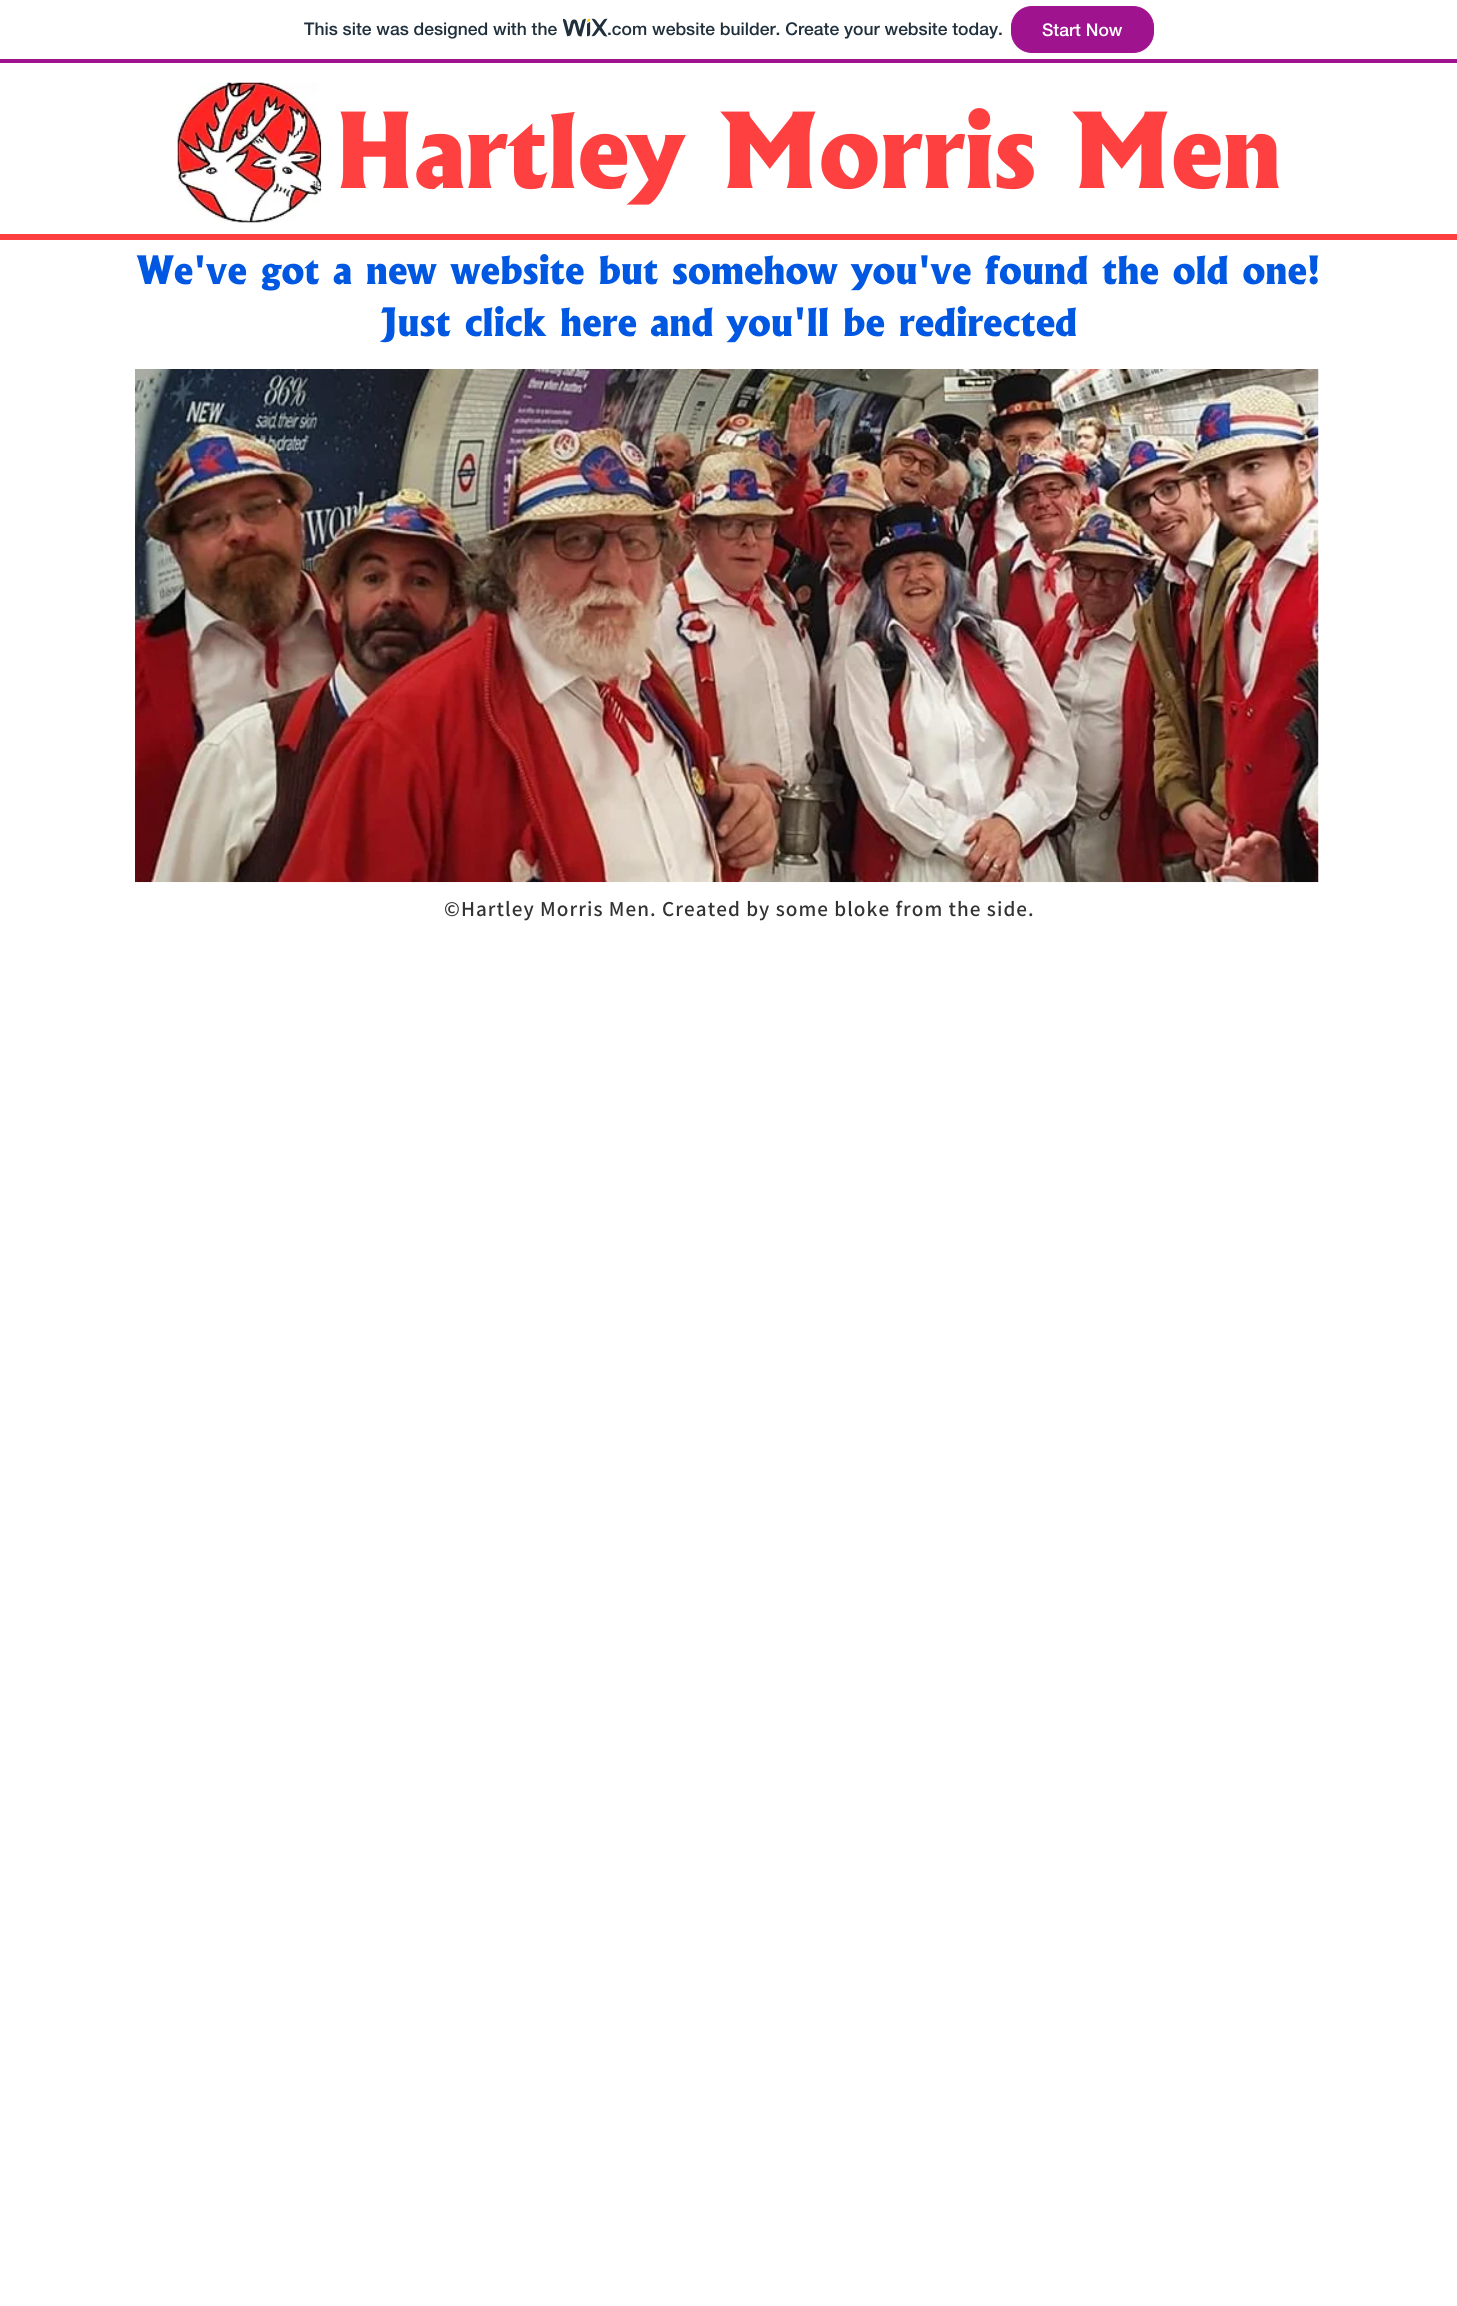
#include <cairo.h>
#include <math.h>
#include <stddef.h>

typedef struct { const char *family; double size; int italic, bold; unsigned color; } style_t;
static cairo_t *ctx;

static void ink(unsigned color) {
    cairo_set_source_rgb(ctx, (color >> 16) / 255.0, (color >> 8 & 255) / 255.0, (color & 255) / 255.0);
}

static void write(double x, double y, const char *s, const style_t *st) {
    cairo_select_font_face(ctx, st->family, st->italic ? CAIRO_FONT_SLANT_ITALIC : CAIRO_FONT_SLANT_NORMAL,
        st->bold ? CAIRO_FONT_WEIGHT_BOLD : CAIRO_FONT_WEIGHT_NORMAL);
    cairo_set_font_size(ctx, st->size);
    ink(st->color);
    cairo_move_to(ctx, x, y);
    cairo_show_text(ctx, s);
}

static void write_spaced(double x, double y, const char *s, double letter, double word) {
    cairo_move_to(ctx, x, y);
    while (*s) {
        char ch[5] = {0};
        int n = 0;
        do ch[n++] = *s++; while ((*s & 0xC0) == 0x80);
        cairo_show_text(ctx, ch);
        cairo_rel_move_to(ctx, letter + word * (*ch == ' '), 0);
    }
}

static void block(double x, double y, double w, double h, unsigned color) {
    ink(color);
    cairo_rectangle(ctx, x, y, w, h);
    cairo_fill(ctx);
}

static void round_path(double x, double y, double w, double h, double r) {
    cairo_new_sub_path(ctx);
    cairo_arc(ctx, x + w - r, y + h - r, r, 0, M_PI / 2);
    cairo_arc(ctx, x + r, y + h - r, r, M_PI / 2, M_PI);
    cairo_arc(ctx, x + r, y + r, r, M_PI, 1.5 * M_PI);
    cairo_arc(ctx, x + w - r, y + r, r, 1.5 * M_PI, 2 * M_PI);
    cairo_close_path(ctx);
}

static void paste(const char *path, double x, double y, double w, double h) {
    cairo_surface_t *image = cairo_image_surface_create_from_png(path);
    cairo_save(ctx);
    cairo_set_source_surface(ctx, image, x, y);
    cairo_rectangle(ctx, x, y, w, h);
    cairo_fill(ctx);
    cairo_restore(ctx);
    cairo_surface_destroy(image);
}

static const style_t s1 = {"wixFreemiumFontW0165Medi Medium", 17.5, 0, 0, 0x20303c};
static const style_t s2 = {"wixFreemiumFontW0165Medi Medium", 17.5, 0, 0, 0xffffff};
static const style_t s3 = {"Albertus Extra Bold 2 ExtraBold", 100, 0, 0, 0xff4040};
static const style_t s4 = {"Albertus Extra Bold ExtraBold", 37.5, 0, 0, 0x0057e1};

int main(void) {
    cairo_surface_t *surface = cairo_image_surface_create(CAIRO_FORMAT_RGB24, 1457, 2306);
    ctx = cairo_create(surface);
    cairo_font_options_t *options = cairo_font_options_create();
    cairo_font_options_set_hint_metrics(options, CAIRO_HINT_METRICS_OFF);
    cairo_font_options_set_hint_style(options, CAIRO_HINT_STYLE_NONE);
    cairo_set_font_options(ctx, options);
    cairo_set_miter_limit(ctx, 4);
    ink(0xffffff);
    cairo_paint(ctx);
    block(0, 59, 1457, 4, 0xa0138e);
    write(304, 35, "This site was designed with the", &s1);
    paste("pic1.png", 563, 18, 45, 19);
    write(607, 35, ".com website builder. Create your website today.", &s1);
    ink(0xa0138e);
    round_path(1011.5, 6.5, 142, 46, 20.5);
    cairo_fill_preserve(ctx);
    cairo_set_line_width(ctx, 1);
    cairo_stroke(ctx);
    write(1042, 36, "Start Now", &s2);
    paste("pic2.png", 177, 82, 145, 141);
    write(334, 188, "Hartley Morris Men", &s3);
    block(0, 234, 1457, 6, 0xff4040);
    write(137, 284, "We've got a new website but somehow you've found the old one!", &s4);
    write(381, 336, "Just click here and you'll be redirected", &s4);
    paste("pic3.png", 135, 369, 1184, 514);
    cairo_select_font_face(ctx, "Assistant SemiBold", CAIRO_FONT_SLANT_NORMAL, CAIRO_FONT_WEIGHT_NORMAL);
    cairo_set_font_size(ctx, 21.25);
    ink(0x333333);
    write_spaced(444, 916, "©Hartley Morris Men. Created by some bloke from the side.", 1.05, 0);
    cairo_surface_write_to_png(surface, "screenshot.png");
    cairo_font_options_destroy(options);
    cairo_destroy(ctx);
    cairo_surface_destroy(surface);
    return 0;
}
